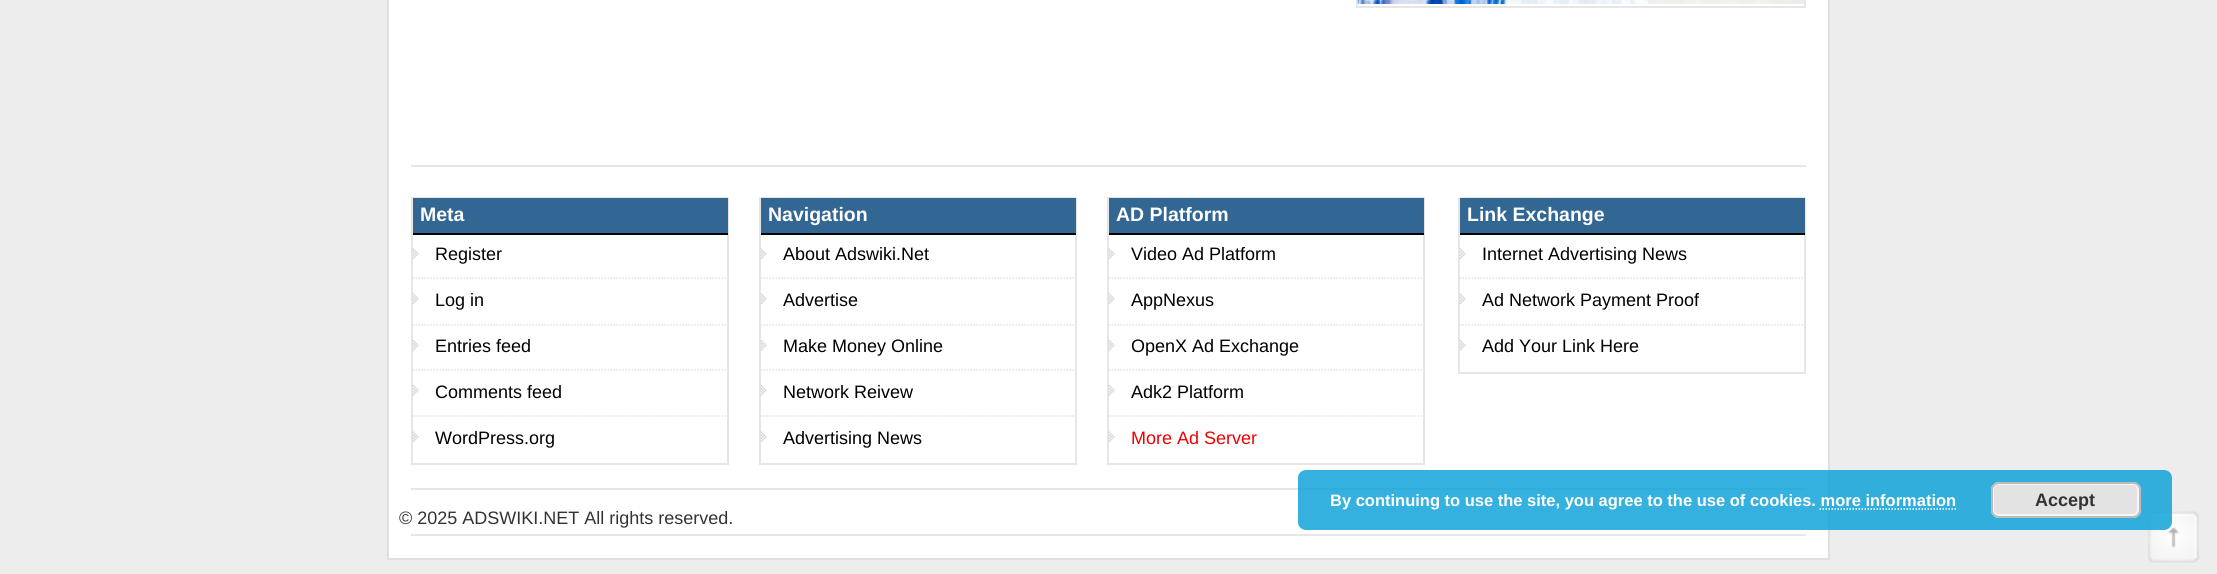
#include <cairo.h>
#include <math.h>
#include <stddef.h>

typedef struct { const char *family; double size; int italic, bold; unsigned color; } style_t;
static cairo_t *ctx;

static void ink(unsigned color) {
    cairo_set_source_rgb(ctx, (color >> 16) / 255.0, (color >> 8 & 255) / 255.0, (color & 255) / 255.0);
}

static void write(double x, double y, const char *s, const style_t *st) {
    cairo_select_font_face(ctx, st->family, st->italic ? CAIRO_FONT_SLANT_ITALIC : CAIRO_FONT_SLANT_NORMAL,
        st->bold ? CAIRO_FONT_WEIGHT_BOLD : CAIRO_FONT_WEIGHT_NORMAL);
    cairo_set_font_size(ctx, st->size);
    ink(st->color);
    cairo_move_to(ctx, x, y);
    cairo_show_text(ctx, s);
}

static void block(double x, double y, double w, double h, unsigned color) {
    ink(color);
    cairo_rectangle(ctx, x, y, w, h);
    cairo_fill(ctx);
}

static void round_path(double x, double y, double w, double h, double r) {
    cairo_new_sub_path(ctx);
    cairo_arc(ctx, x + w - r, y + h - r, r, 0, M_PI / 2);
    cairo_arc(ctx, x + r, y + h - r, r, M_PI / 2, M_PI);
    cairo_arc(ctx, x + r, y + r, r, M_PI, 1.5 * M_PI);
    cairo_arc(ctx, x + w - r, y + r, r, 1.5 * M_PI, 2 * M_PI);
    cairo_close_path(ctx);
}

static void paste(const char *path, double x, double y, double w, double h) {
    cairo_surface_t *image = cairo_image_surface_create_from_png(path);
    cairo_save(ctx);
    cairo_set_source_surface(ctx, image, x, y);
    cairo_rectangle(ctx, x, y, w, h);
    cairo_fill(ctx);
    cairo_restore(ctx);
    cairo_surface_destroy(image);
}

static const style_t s1 = {"Liberation Sans", 19.5, 0, 1, 0xffffff};
static const style_t s2 = {"Liberation Sans", 18, 0, 0, 0x000000};
static const style_t s3 = {"Liberation Sans", 18, 0, 0, 0xf00000};
static const style_t s4 = {"Liberation Sans", 18, 0, 0, 0x333333};
static const style_t s5 = {"Liberation Sans", 16.5, 0, 1, 0xffffff};
static const style_t s6 = {"Liberation Sans", 18, 0, 1, 0x333333};

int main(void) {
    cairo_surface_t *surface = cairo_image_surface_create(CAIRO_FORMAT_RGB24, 2217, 574);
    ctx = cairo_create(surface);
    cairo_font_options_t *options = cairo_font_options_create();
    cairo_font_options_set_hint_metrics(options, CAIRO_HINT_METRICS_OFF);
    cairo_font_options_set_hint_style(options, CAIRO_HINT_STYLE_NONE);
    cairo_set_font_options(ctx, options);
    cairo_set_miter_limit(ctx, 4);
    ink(0xededed);
    cairo_paint(ctx);
    ink(0xffffff);
    cairo_rectangle(ctx, 388, -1, 1441, 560);
    cairo_fill_preserve(ctx);
    ink(0xdfdfdf);
    cairo_stroke(ctx);
    cairo_rectangle(ctx, 1357, -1, 448, 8);
    ink(0xe6e6e6);
    cairo_stroke(ctx);
    paste("pic1.png", 1357, 0, 447, 4);
    block(411, 165, 1395, 2, 0xe6e6e6);
    cairo_rectangle(ctx, 412, 198, 316, 266);
    cairo_stroke(ctx);
    block(413, 198, 315, 35, 0x326693);
    block(413, 233, 315, 2, 0x000000);
    write(420, 221, "Meta", &s1);
    paste("pic2.png", 412, 248, 7, 11);
    write(435, 260, "Register", &s2);
    paste("pic2.png", 412, 293, 7, 11);
    cairo_new_path(ctx);
    cairo_move_to(ctx, 412.5, 278);
    cairo_line_to(ctx, 727.5, 278);
    ink(0xe0e0e0);
    cairo_set_line_width(ctx, 1.5);
    cairo_set_dash(ctx, (double[]){1.5, 1.5}, 2, 0);
    cairo_stroke(ctx);
    write(435, 306, "Log in", &s2);
    paste("pic3.png", 412, 340, 7, 11);
    cairo_new_path(ctx);
    cairo_move_to(ctx, 412.5, 325);
    cairo_line_to(ctx, 727.5, 325);
    ink(0xe0e0e0);
    cairo_stroke(ctx);
    write(435, 352, "Entries feed", &s2);
    paste("pic3.png", 412, 385, 7, 11);
    cairo_new_path(ctx);
    cairo_move_to(ctx, 412.5, 370);
    cairo_line_to(ctx, 727.5, 370);
    ink(0xe0e0e0);
    cairo_stroke(ctx);
    write(435, 398, "Comments feed", &s2);
    paste("pic2.png", 412, 431, 7, 11);
    cairo_new_path(ctx);
    cairo_move_to(ctx, 412.5, 416);
    cairo_line_to(ctx, 727.5, 416);
    ink(0xe0e0e0);
    cairo_stroke(ctx);
    write(435, 444, "WordPress.org", &s2);
    cairo_rectangle(ctx, 760, 198, 316, 266);
    ink(0xe6e6e6);
    cairo_set_line_width(ctx, 2);
    cairo_set_dash(ctx, NULL, 0, 0);
    cairo_stroke(ctx);
    block(761, 198, 315, 35, 0x326693);
    block(761, 233, 315, 2, 0x000000);
    write(768, 221, "Navigation", &s1);
    paste("pic4.png", 760, 248, 7, 11);
    write(783, 260, "About Adswiki.Net", &s2);
    paste("pic4.png", 760, 293, 7, 11);
    cairo_new_path(ctx);
    cairo_move_to(ctx, 760.5, 278);
    cairo_line_to(ctx, 1075.5, 278);
    ink(0xe0e0e0);
    cairo_set_line_width(ctx, 1.5);
    cairo_set_dash(ctx, (double[]){1.5, 1.5}, 2, 0);
    cairo_stroke(ctx);
    write(783, 306, "Advertise", &s2);
    paste("pic5.png", 760, 340, 7, 11);
    cairo_new_path(ctx);
    cairo_move_to(ctx, 760.5, 325);
    cairo_line_to(ctx, 1075.5, 325);
    ink(0xe0e0e0);
    cairo_stroke(ctx);
    write(783, 352, "Make Money Online", &s2);
    paste("pic5.png", 760, 385, 7, 11);
    cairo_new_path(ctx);
    cairo_move_to(ctx, 760.5, 370);
    cairo_line_to(ctx, 1075.5, 370);
    ink(0xe0e0e0);
    cairo_stroke(ctx);
    write(783, 398, "Network Reivew", &s2);
    paste("pic4.png", 760, 431, 7, 11);
    cairo_new_path(ctx);
    cairo_move_to(ctx, 760.5, 416);
    cairo_line_to(ctx, 1075.5, 416);
    ink(0xe0e0e0);
    cairo_stroke(ctx);
    write(783, 444, "Advertising News", &s2);
    cairo_rectangle(ctx, 1108, 198, 316, 266);
    ink(0xe6e6e6);
    cairo_set_line_width(ctx, 2);
    cairo_set_dash(ctx, NULL, 0, 0);
    cairo_stroke(ctx);
    block(1109, 198, 315, 35, 0x326693);
    block(1109, 233, 315, 2, 0x000000);
    write(1116, 221, "AD Platform", &s1);
    paste("pic4.png", 1108, 248, 7, 11);
    write(1131, 260, "Video Ad Platform", &s2);
    paste("pic4.png", 1108, 293, 7, 11);
    cairo_new_path(ctx);
    cairo_move_to(ctx, 1108.5, 278);
    cairo_line_to(ctx, 1423.5, 278);
    ink(0xe0e0e0);
    cairo_set_line_width(ctx, 1.5);
    cairo_set_dash(ctx, (double[]){1.5, 1.5}, 2, 0);
    cairo_stroke(ctx);
    write(1131, 306, "AppNexus", &s2);
    paste("pic5.png", 1108, 340, 7, 11);
    cairo_new_path(ctx);
    cairo_move_to(ctx, 1108.5, 325);
    cairo_line_to(ctx, 1423.5, 325);
    ink(0xe0e0e0);
    cairo_stroke(ctx);
    write(1131, 352, "OpenX Ad Exchange", &s2);
    paste("pic5.png", 1108, 385, 7, 11);
    cairo_new_path(ctx);
    cairo_move_to(ctx, 1108.5, 370);
    cairo_line_to(ctx, 1423.5, 370);
    ink(0xe0e0e0);
    cairo_stroke(ctx);
    write(1131, 398, "Adk2 Platform", &s2);
    paste("pic4.png", 1108, 431, 7, 11);
    cairo_new_path(ctx);
    cairo_move_to(ctx, 1108.5, 416);
    cairo_line_to(ctx, 1423.5, 416);
    ink(0xe0e0e0);
    cairo_stroke(ctx);
    write(1131, 444, "More Ad Server", &s3);
    cairo_rectangle(ctx, 1459, 198, 346, 175);
    ink(0xe6e6e6);
    cairo_set_line_width(ctx, 2);
    cairo_set_dash(ctx, NULL, 0, 0);
    cairo_stroke(ctx);
    block(1460, 198, 345, 35, 0x326693);
    block(1460, 233, 345, 2, 0x000000);
    write(1467, 221, "Link Exchange", &s1);
    paste("pic2.png", 1459, 248, 7, 11);
    write(1482, 260, "Internet Advertising News", &s2);
    paste("pic2.png", 1459, 293, 7, 11);
    cairo_new_path(ctx);
    cairo_move_to(ctx, 1459.5, 278);
    cairo_line_to(ctx, 1804.5, 278);
    ink(0xe0e0e0);
    cairo_set_line_width(ctx, 1.5);
    cairo_set_dash(ctx, (double[]){1.5, 1.5}, 2, 0);
    cairo_stroke(ctx);
    write(1482, 306, "Ad Network Payment Proof", &s2);
    paste("pic3.png", 1459, 340, 7, 11);
    cairo_new_path(ctx);
    cairo_move_to(ctx, 1459.5, 325);
    cairo_line_to(ctx, 1804.5, 325);
    ink(0xe0e0e0);
    cairo_stroke(ctx);
    write(1482, 352, "Add Your Link Here", &s2);
    block(411, 488, 1395, 2, 0xe6e6e6);
    write(399, 524, "© 2025 ADSWIKI.NET All rights reserved.", &s4);
    block(411, 534, 1395, 2, 0xe6e6e6);
    paste("pic6.png", 2148, 511, 51, 52);
    cairo_set_source_rgba(ctx, 0.067, 0.639, 0.847, 0.85);
    round_path(1298, 470, 874, 60, 8);
    cairo_fill(ctx);
    write(1330, 506, "By continuing to use the site, you agree to the use of cookies. more information", &s5);
    ink(0xe3e3e3);
    round_path(1991, 482, 150, 36, 8);
    cairo_fill(ctx);
    round_path(1993, 484, 145, 31, 5);
    ink(0xf6f6f6);
    cairo_set_line_width(ctx, 2);
    cairo_set_dash(ctx, NULL, 0, 0);
    cairo_stroke(ctx);
    round_path(1992, 483, 148, 34, 7);
    ink(0xbbbbbb);
    cairo_stroke(ctx);
    write(2035, 506, "Accept", &s6);
    cairo_new_path(ctx);
    cairo_move_to(ctx, 1819.5, 509);
    cairo_line_to(ctx, 1956, 509);
    ink(0xffffff);
    cairo_set_line_width(ctx, 1.5);
    cairo_set_dash(ctx, (double[]){1.5, 1.5}, 2, 0);
    cairo_stroke(ctx);
    cairo_surface_write_to_png(surface, "screenshot.png");
    cairo_font_options_destroy(options);
    cairo_destroy(ctx);
    cairo_surface_destroy(surface);
    return 0;
}
